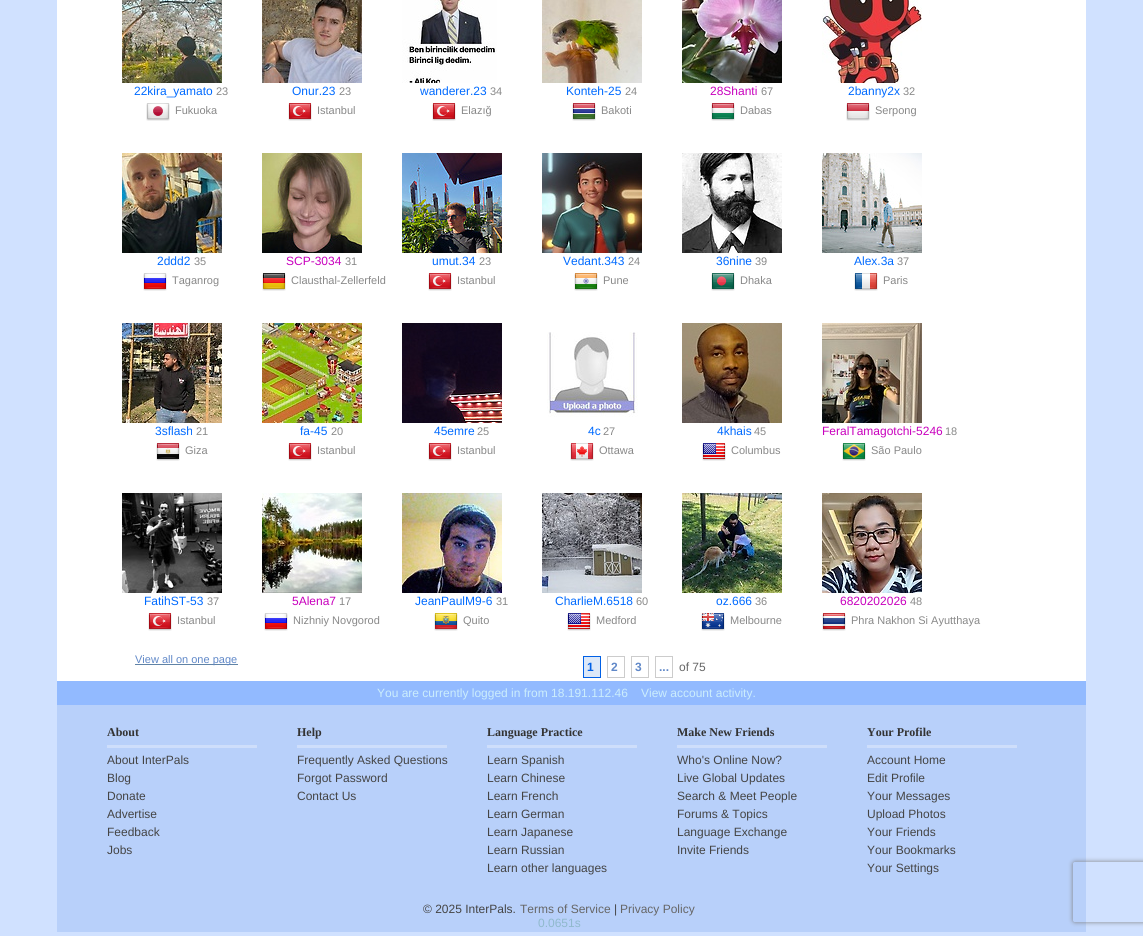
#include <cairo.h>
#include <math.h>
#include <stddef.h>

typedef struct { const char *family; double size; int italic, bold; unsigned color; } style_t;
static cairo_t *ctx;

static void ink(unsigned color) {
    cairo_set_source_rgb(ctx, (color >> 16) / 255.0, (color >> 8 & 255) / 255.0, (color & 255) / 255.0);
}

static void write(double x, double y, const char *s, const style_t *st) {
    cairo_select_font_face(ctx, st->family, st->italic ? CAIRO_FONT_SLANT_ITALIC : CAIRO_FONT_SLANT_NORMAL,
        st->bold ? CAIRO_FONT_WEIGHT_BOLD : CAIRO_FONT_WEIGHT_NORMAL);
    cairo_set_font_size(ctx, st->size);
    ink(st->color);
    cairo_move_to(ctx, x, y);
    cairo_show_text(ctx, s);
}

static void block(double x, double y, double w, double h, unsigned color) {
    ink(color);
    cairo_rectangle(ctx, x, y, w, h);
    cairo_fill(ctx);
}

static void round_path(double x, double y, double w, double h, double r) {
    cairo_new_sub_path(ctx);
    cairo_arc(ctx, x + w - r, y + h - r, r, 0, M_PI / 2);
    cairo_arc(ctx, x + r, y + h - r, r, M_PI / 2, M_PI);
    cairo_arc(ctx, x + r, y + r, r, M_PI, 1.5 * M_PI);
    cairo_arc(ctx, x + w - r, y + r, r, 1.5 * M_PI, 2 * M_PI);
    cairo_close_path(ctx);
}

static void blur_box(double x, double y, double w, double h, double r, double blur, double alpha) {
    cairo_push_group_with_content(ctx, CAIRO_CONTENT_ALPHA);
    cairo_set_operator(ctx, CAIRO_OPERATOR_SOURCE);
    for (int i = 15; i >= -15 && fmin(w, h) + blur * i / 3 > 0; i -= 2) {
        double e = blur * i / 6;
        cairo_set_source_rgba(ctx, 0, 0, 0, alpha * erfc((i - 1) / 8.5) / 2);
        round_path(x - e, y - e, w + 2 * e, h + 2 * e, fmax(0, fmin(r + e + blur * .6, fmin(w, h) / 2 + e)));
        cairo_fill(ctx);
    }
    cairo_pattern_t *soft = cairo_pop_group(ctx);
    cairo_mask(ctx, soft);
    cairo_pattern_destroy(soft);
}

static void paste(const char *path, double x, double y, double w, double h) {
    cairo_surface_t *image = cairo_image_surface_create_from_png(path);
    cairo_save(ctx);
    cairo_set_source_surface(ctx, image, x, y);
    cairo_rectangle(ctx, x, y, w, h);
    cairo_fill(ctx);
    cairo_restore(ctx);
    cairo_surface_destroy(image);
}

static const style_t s1 = {"Liberation Sans", 12, 0, 0, 0x006aff};
static const style_t s2 = {"Liberation Sans", 11, 0, 0, 0x888888};
static const style_t s3 = {"Liberation Sans", 12, 0, 0, 0xc800bd};
static const style_t s4 = {"Liberation Sans", 11, 0, 0, 0x6088c8};
static const style_t s5 = {"Liberation Sans", 12, 0, 1, 0x0060e6};
static const style_t s6 = {"Liberation Sans", 12, 0, 1, 0x6088c8};
static const style_t s7 = {"Liberation Sans", 12, 0, 0, 0x666666};
static const style_t s8 = {"Liberation Sans", 12, 0, 0, 0xcbedfc};
static const style_t s9 = {"Liberation Serif", 12, 0, 1, 0x333333};
static const style_t s10 = {"Liberation Sans", 12, 0, 0, 0x444444};
static const style_t s11 = {"Liberation Sans", 12, 0, 0, 0x90b9cc};

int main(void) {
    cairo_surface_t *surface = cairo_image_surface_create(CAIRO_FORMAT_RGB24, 1143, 936);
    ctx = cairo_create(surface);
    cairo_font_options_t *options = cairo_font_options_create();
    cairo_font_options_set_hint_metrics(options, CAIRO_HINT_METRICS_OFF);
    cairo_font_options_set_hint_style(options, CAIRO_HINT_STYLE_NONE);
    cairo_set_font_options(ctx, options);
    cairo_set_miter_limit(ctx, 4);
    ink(0xd0e1ff);
    cairo_paint(ctx);
    block(57, 0, 1029, 681, 0xffffff);
    paste("pic1.png", 122, 0, 100, 83);
    write(134, 95, "22kira_yamato", &s1);
    write(216, 95, "23", &s2);
    paste("pic2.png", 146, 103, 24, 18);
    write(175, 114, "Fukuoka", &s2);
    paste("pic3.png", 262, 0, 100, 83);
    write(292, 95, "Onur.23", &s1);
    write(339, 95, "23", &s2);
    paste("pic4.png", 288, 103, 24, 18);
    write(317, 114, "Istanbul", &s2);
    paste("pic5.png", 402, 0, 95, 83);
    write(420, 95, "wanderer.23", &s1);
    write(490, 95, "34", &s2);
    paste("pic4.png", 432, 103, 24, 18);
    write(461, 114, "Elazığ", &s2);
    paste("pic6.png", 542, 0, 100, 83);
    write(566, 95, "Konteh-25", &s1);
    write(625, 95, "24", &s2);
    paste("pic7.png", 572, 103, 24, 18);
    write(601, 114, "Bakoti", &s2);
    paste("pic8.png", 682, 0, 100, 83);
    write(710, 95, "28Shanti", &s3);
    write(761, 95, "67", &s2);
    paste("pic9.png", 711, 103, 24, 18);
    write(740, 114, "Dabas", &s2);
    paste("pic10.png", 822, 0, 100, 83);
    write(848, 95, "2banny2x", &s1);
    write(903, 95, "32", &s2);
    paste("pic11.png", 846, 103, 24, 18);
    write(875, 114, "Serpong", &s2);
    paste("pic12.png", 122, 153, 100, 100);
    write(157, 265, "2ddd2", &s1);
    write(194, 265, "35", &s2);
    paste("pic13.png", 143, 273, 24, 18);
    write(172, 284, "Taganrog", &s2);
    paste("pic14.png", 262, 153, 100, 100);
    write(286, 265, "SCP-3034", &s3);
    write(345, 265, "31", &s2);
    paste("pic15.png", 262, 273, 24, 18);
    write(291, 284, "Clausthal-Zellerfeld", &s2);
    paste("pic16.png", 402, 153, 100, 100);
    write(432, 265, "umut.34", &s1);
    write(479, 265, "23", &s2);
    paste("pic4.png", 428, 273, 24, 18);
    write(457, 284, "Istanbul", &s2);
    paste("pic17.png", 542, 153, 100, 100);
    write(563, 265, "Vedant.343", &s1);
    write(628, 265, "24", &s2);
    paste("pic18.png", 574, 273, 24, 18);
    write(603, 284, "Pune", &s2);
    paste("pic19.png", 682, 153, 100, 100);
    write(716, 265, "36nine", &s1);
    write(755, 265, "39", &s2);
    paste("pic20.png", 711, 273, 24, 18);
    write(740, 284, "Dhaka", &s2);
    paste("pic21.png", 822, 153, 100, 100);
    write(854, 265, "Alex.3a", &s1);
    write(897, 265, "37", &s2);
    paste("pic22.png", 854, 273, 24, 18);
    write(883, 284, "Paris", &s2);
    paste("pic23.png", 122, 323, 100, 100);
    write(155, 435, "3sflash", &s1);
    write(196, 435, "21", &s2);
    paste("pic24.png", 156, 443, 24, 18);
    write(185, 454, "Giza", &s2);
    paste("pic25.png", 262, 323, 100, 100);
    write(300, 435, "fa-45", &s1);
    write(331, 435, "20", &s2);
    paste("pic4.png", 288, 443, 24, 18);
    write(317, 454, "Istanbul", &s2);
    paste("pic26.png", 402, 323, 100, 100);
    write(434, 435, "45emre", &s1);
    write(477, 435, "25", &s2);
    paste("pic4.png", 428, 443, 24, 18);
    write(457, 454, "Istanbul", &s2);
    paste("pic27.png", 547, 332, 91, 85);
    write(588, 435, "4c", &s1);
    write(603, 435, "27", &s2);
    paste("pic28.png", 570, 443, 24, 18);
    write(599, 454, "Ottawa", &s2);
    paste("pic29.png", 682, 323, 100, 100);
    write(717, 435, "4khais", &s1);
    write(754, 435, "45", &s2);
    paste("pic30.png", 702, 443, 24, 18);
    write(731, 454, "Columbus", &s2);
    paste("pic31.png", 822, 323, 100, 100);
    write(822, 435, "FeralTamagotchi-5246", &s3);
    write(945, 435, "18", &s2);
    paste("pic32.png", 842, 443, 24, 18);
    write(871, 454, "São Paulo", &s2);
    paste("pic33.png", 122, 493, 100, 100);
    write(144, 605, "FatihST-53", &s1);
    write(207, 605, "37", &s2);
    paste("pic4.png", 148, 613, 24, 18);
    write(177, 624, "Istanbul", &s2);
    paste("pic34.png", 262, 493, 100, 100);
    write(292, 605, "5Alena7", &s3);
    write(339, 605, "17", &s2);
    paste("pic13.png", 264, 613, 24, 18);
    write(293, 624, "Nizhniy Novgorod", &s2);
    paste("pic35.png", 402, 493, 100, 100);
    write(415, 605, "JeanPaulM9-6", &s1);
    write(496, 605, "31", &s2);
    paste("pic36.png", 434, 613, 24, 18);
    write(463, 624, "Quito", &s2);
    paste("pic37.png", 542, 493, 100, 100);
    write(555, 605, "CharlieM.6518", &s1);
    write(636, 605, "60", &s2);
    paste("pic30.png", 567, 613, 24, 18);
    write(596, 624, "Medford", &s2);
    paste("pic38.png", 682, 493, 100, 100);
    write(716, 605, "oz.666", &s1);
    write(755, 605, "36", &s2);
    paste("pic39.png", 701, 613, 24, 18);
    write(730, 624, "Melbourne", &s2);
    paste("pic40.png", 822, 493, 100, 100);
    write(840, 605, "6820202026", &s3);
    write(910, 605, "48", &s2);
    paste("pic41.png", 822, 613, 24, 18);
    write(851, 624, "Phra Nakhon Si Ayutthaya", &s2);
    block(135, 664, 103, 1, 0x6083a6);
    write(135, 663, "View all on one page", &s4);
    ink(0xdce8f8);
    cairo_rectangle(ctx, 583.5, 656.5, 17, 21);
    cairo_fill_preserve(ctx);
    ink(0x0060e6);
    cairo_set_line_width(ctx, 1);
    cairo_stroke(ctx);
    write(587, 671, "1", &s5);
    cairo_rectangle(ctx, 607.5, 656.5, 17, 21);
    ink(0xcccccc);
    cairo_stroke(ctx);
    write(611, 671, "2", &s6);
    cairo_rectangle(ctx, 631.5, 656.5, 17, 21);
    ink(0xcccccc);
    cairo_stroke(ctx);
    write(635, 671, "3", &s6);
    cairo_rectangle(ctx, 655.5, 656.5, 17, 21);
    ink(0xcccccc);
    cairo_stroke(ctx);
    write(659, 671, "...", &s6);
    write(679, 671, "of 75", &s7);
    block(57, 681, 1029, 24, 0x92baff);
    write(377, 697, "You are currently logged in from 18.191.112.46", &s8);
    write(641, 697, "View account activity.", &s8);
    block(57, 705, 1029, 227, 0xb8d0fa);
    block(107, 745, 150, 3, 0xcedefb);
    write(107, 736, "About", &s9);
    write(107, 764, "About InterPals", &s10);
    write(107, 782, "Blog", &s10);
    write(107, 800, "Donate", &s10);
    write(107, 818, "Advertise", &s10);
    write(107, 836, "Feedback", &s10);
    write(107, 854, "Jobs", &s10);
    block(297, 745, 150, 3, 0xcedefb);
    write(297, 736, "Help", &s9);
    write(297, 764, "Frequently Asked Questions", &s10);
    write(297, 782, "Forgot Password", &s10);
    write(297, 800, "Contact Us", &s10);
    block(487, 745, 150, 3, 0xcedefb);
    write(487, 736, "Language Practice", &s9);
    write(487, 764, "Learn Spanish", &s10);
    write(487, 782, "Learn Chinese", &s10);
    write(487, 800, "Learn French", &s10);
    write(487, 818, "Learn German", &s10);
    write(487, 836, "Learn Japanese", &s10);
    write(487, 854, "Learn Russian", &s10);
    write(487, 872, "Learn other languages", &s10);
    block(677, 745, 150, 3, 0xcedefb);
    write(677, 736, "Make New Friends", &s9);
    write(677, 764, "Who's Online Now?", &s10);
    write(677, 782, "Live Global Updates", &s10);
    write(677, 800, "Search & Meet People", &s10);
    write(677, 818, "Forums & Topics", &s10);
    write(677, 836, "Language Exchange", &s10);
    write(677, 854, "Invite Friends", &s10);
    block(867, 745, 150, 3, 0xcedefb);
    write(867, 736, "Your Profile", &s9);
    write(867, 764, "Account Home", &s10);
    write(867, 782, "Edit Profile", &s10);
    write(867, 800, "Your Messages", &s10);
    write(867, 818, "Upload Photos", &s10);
    write(867, 836, "Your Friends", &s10);
    write(867, 854, "Your Bookmarks", &s10);
    write(867, 872, "Your Settings", &s10);
    write(423, 913, "© 2025 InterPals.", &s10);
    write(520, 913, "Terms of Service", &s7);
    write(614, 913, "|", &s10);
    write(620, 913, "Privacy Policy", &s7);
    write(538, 927, "0.0651s", &s11);
    cairo_save(ctx);
    cairo_set_fill_rule(ctx, CAIRO_FILL_RULE_EVEN_ODD);
    cairo_new_path(ctx);
    cairo_move_to(ctx, 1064, 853);
    cairo_line_to(ctx, 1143, 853);
    cairo_line_to(ctx, 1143, 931);
    cairo_line_to(ctx, 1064, 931);
    cairo_close_path(ctx);
    cairo_move_to(ctx, 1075, 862);
    cairo_line_to(ctx, 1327, 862);
    cairo_curve_to(ctx, 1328, 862, 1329, 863, 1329, 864);
    cairo_line_to(ctx, 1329, 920);
    cairo_curve_to(ctx, 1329, 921, 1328, 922, 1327, 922);
    cairo_line_to(ctx, 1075, 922);
    cairo_curve_to(ctx, 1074, 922, 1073, 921, 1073, 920);
    cairo_line_to(ctx, 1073, 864);
    cairo_curve_to(ctx, 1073, 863, 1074, 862, 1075, 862);
    cairo_close_path(ctx);
    cairo_clip(ctx);
    ink(0x808080);
    blur_box(1073, 862, 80, 60, 2, 2.5, 1);
    cairo_restore(ctx);
    cairo_surface_write_to_png(surface, "screenshot.png");
    cairo_font_options_destroy(options);
    cairo_destroy(ctx);
    cairo_surface_destroy(surface);
    return 0;
}
